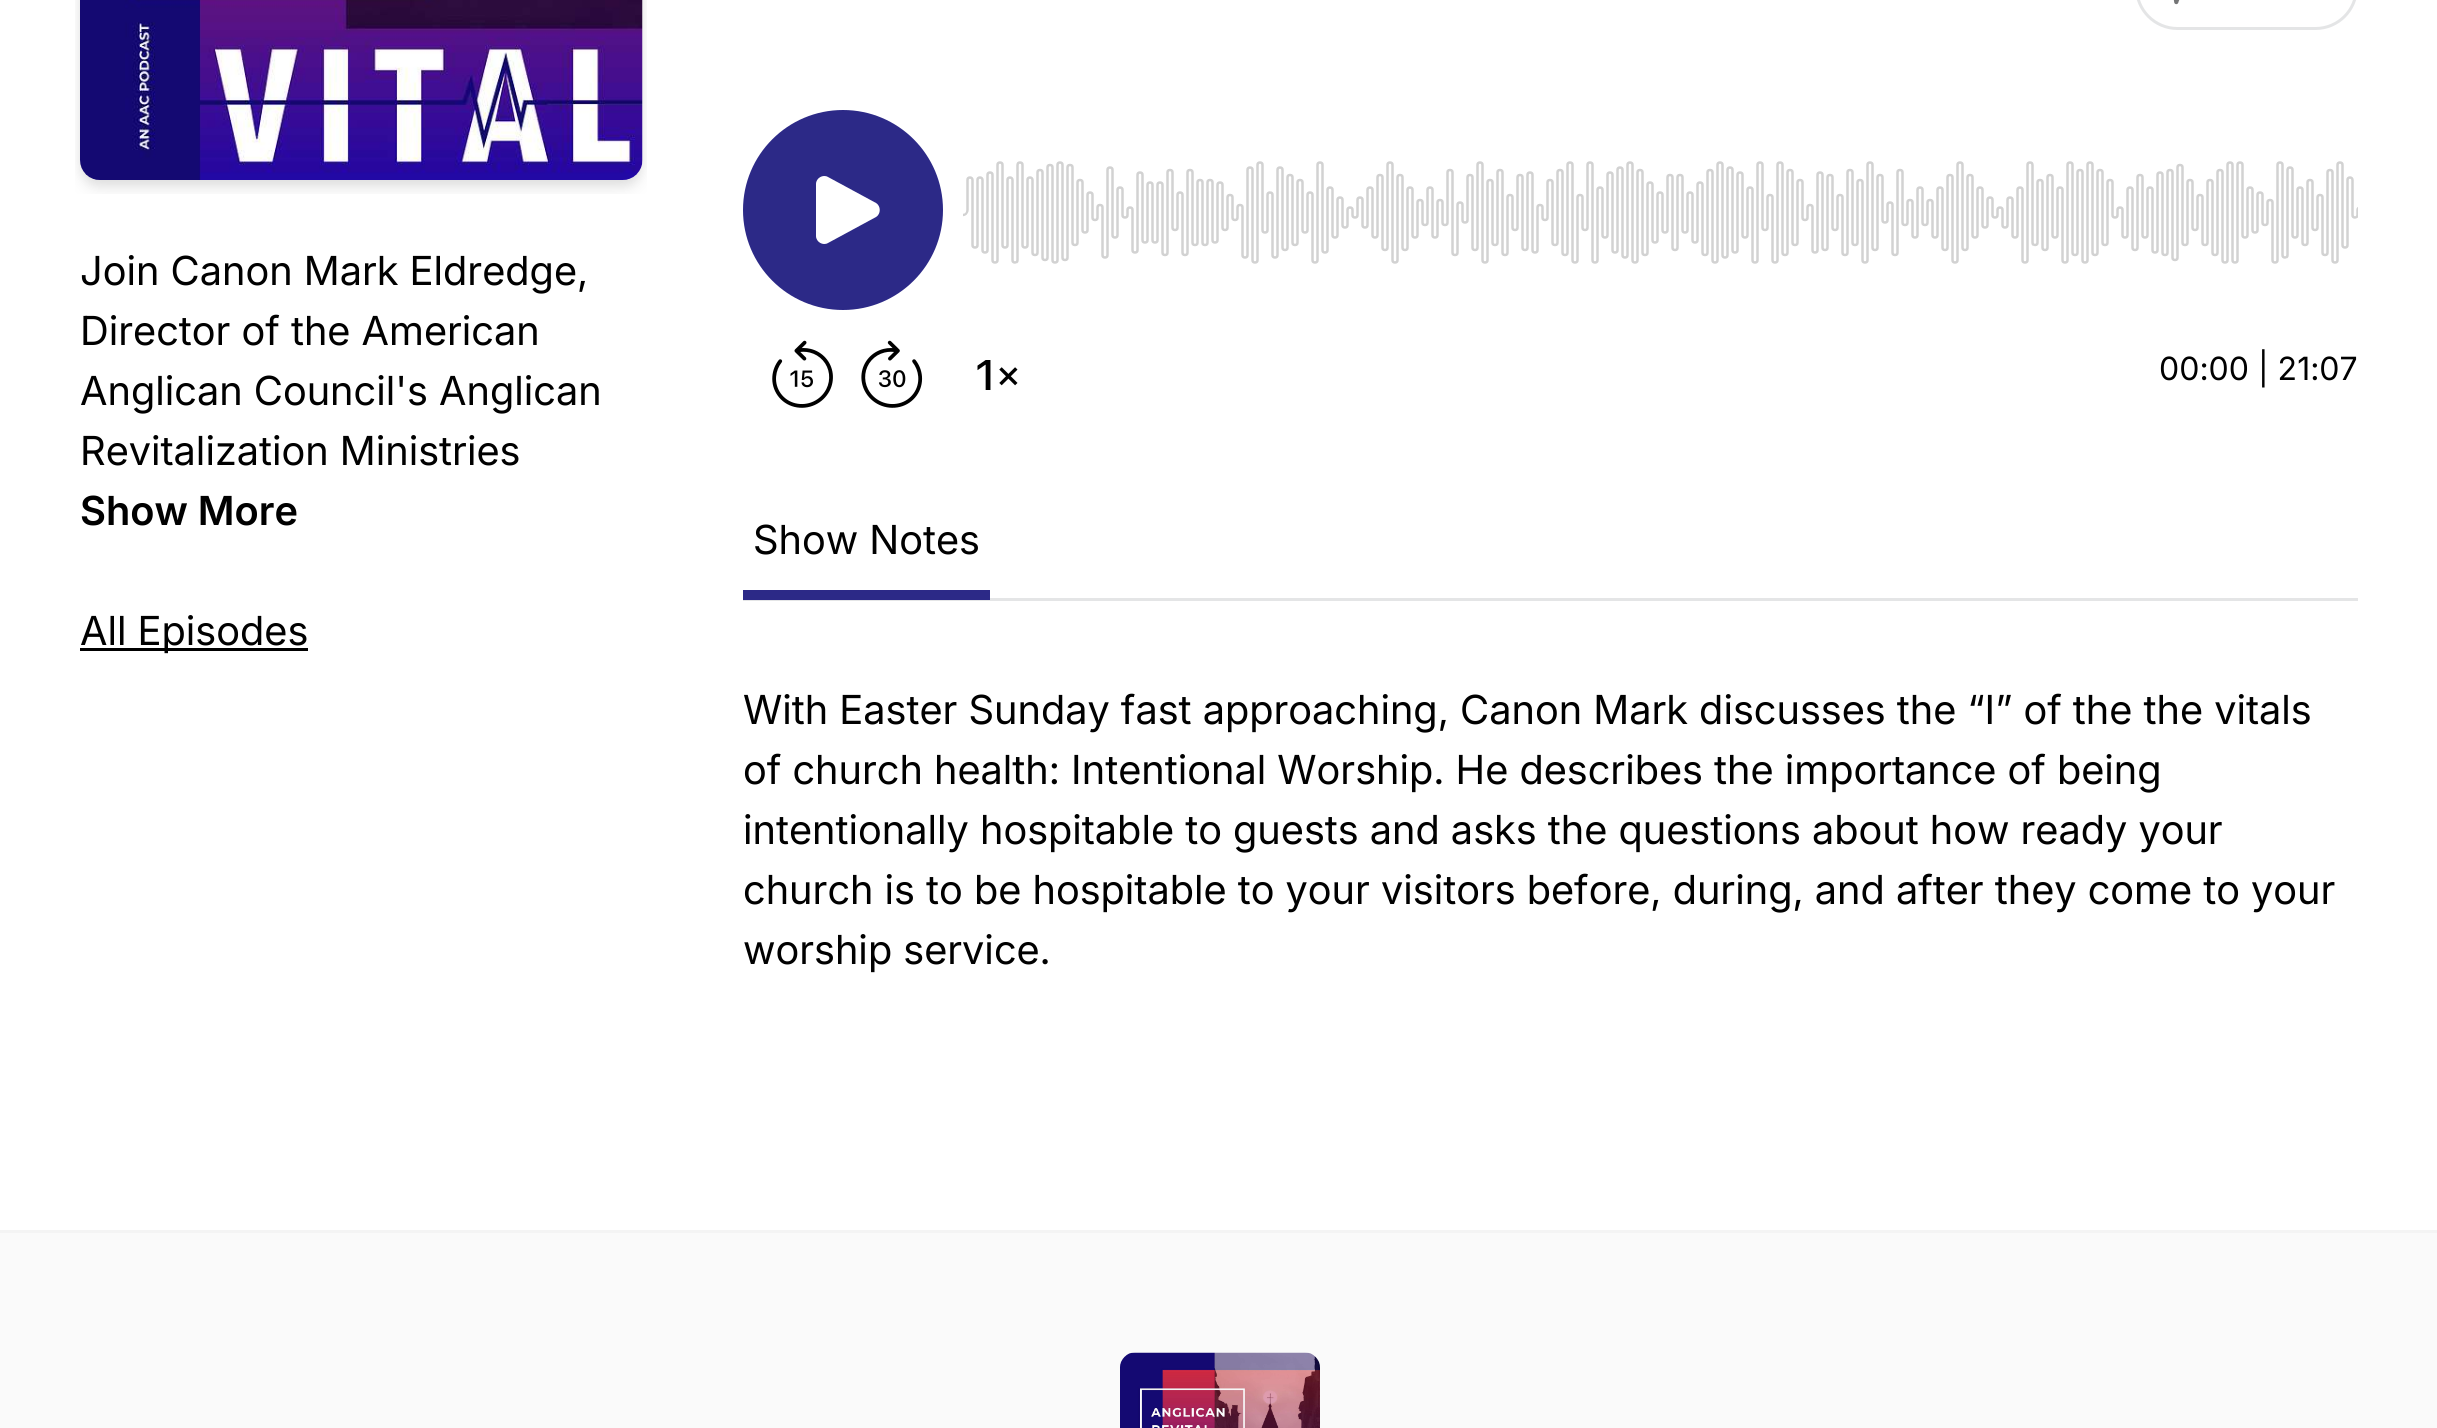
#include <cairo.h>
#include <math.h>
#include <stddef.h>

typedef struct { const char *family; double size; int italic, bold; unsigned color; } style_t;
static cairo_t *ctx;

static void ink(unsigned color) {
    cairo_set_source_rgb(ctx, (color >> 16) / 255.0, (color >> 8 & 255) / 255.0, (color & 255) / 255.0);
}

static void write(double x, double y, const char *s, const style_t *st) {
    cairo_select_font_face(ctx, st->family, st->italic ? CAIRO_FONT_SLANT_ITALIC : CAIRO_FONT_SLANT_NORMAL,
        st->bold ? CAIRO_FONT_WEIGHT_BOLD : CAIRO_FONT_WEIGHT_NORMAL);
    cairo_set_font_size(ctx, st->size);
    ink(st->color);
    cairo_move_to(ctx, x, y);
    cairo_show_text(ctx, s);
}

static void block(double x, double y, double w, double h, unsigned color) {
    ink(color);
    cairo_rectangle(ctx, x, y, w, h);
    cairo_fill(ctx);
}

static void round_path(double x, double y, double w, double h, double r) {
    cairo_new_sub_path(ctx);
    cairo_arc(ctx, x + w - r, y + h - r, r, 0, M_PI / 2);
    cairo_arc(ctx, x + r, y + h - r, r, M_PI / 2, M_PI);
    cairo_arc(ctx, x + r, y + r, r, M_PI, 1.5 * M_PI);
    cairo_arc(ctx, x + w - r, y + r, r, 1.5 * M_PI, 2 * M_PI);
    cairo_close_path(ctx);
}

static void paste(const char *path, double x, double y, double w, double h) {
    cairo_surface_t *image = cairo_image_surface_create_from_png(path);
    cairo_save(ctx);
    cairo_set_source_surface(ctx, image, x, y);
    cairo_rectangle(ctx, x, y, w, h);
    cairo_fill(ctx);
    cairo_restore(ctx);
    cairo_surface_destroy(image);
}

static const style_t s1 = {"Inter", 40, 0, 0, 0x000000};
static const style_t s2 = {"Inter SemiBold", 40, 0, 0, 0x000000};
static const style_t s3 = {"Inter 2", 32, 0, 0, 0x000000};

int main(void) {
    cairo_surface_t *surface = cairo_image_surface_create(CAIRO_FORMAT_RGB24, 2437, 1428);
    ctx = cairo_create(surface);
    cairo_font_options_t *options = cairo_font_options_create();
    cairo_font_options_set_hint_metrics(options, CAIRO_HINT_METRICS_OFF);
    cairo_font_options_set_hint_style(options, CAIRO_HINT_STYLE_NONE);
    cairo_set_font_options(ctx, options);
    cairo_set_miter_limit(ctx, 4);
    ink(0xffffff);
    cairo_paint(ctx);
    paste("pic1.png", 75, 0, 572, 194);
    write(80, 285, "Join Canon Mark Eldredge,", &s1);
    write(80, 345, "Director of the American", &s1);
    write(80, 405, "Anglican Council's Anglican", &s1);
    write(80, 465, "Revitalization Ministries", &s1);
    write(80, 525, "Show More", &s2);
    block(80, 648, 228, 3, 0x000000);
    write(80, 645, "All Episodes", &s1);
    round_path(2136.5, -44.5, 220, 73, 41);
    ink(0xe4e5e6);
    cairo_set_line_width(ctx, 3);
    cairo_stroke(ctx);
    paste("pic2.png", 2173, 0, 7, 5);
    paste("pic3.png", 772, 340, 61, 68);
    paste("pic4.png", 861, 340, 62, 68);
    paste("pic5.png", 977, 360, 41, 30);
    ink(0x2c2987);
    cairo_arc(ctx, 843, 210, 100, 0, 2 * M_PI);
    cairo_fill(ctx);
    ink(0xffffff);
    cairo_set_fill_rule(ctx, CAIRO_FILL_RULE_EVEN_ODD);
    cairo_new_path(ctx);
    cairo_move_to(ctx, 816, 184);
    cairo_curve_to(ctx, 816, 178, 823, 174, 828, 177);
    cairo_line_to(ctx, 876, 203);
    cairo_curve_to(ctx, 881, 206, 881, 214, 876, 217);
    cairo_line_to(ctx, 828, 243);
    cairo_curve_to(ctx, 823, 246, 816, 242, 816, 236);
    cairo_close_path(ctx);
    cairo_fill(ctx);
    paste("pic6.png", 963, 161, 1395, 103);
    write(2159, 380, "00:00 | 21:07", &s3);
    block(743, 598, 1615, 3, 0xe4e5e6);
    block(743, 590, 247, 10, 0x2c2987);
    write(753, 554, "Show Notes", &s1);
    write(743, 724, "With Easter Sunday fast approaching, Canon Mark discusses the “I” of the the vitals", &s1);
    write(743, 784, "of church health: Intentional Worship. He describes the importance of being", &s1);
    write(743, 844, "intentionally hospitable to guests and asks the questions about how ready your", &s1);
    write(743, 904, "church is to be hospitable to your visitors before, during, and after they come to your", &s1);
    write(743, 964, "worship service.", &s1);
    block(0, 1233, 2437, 195, 0xfafafa);
    block(0, 1230, 2437, 3, 0xf4f4f4);
    paste("pic7.png", 1120, 1352, 200, 76);
    cairo_surface_write_to_png(surface, "screenshot.png");
    cairo_font_options_destroy(options);
    cairo_destroy(ctx);
    cairo_surface_destroy(surface);
    return 0;
}
